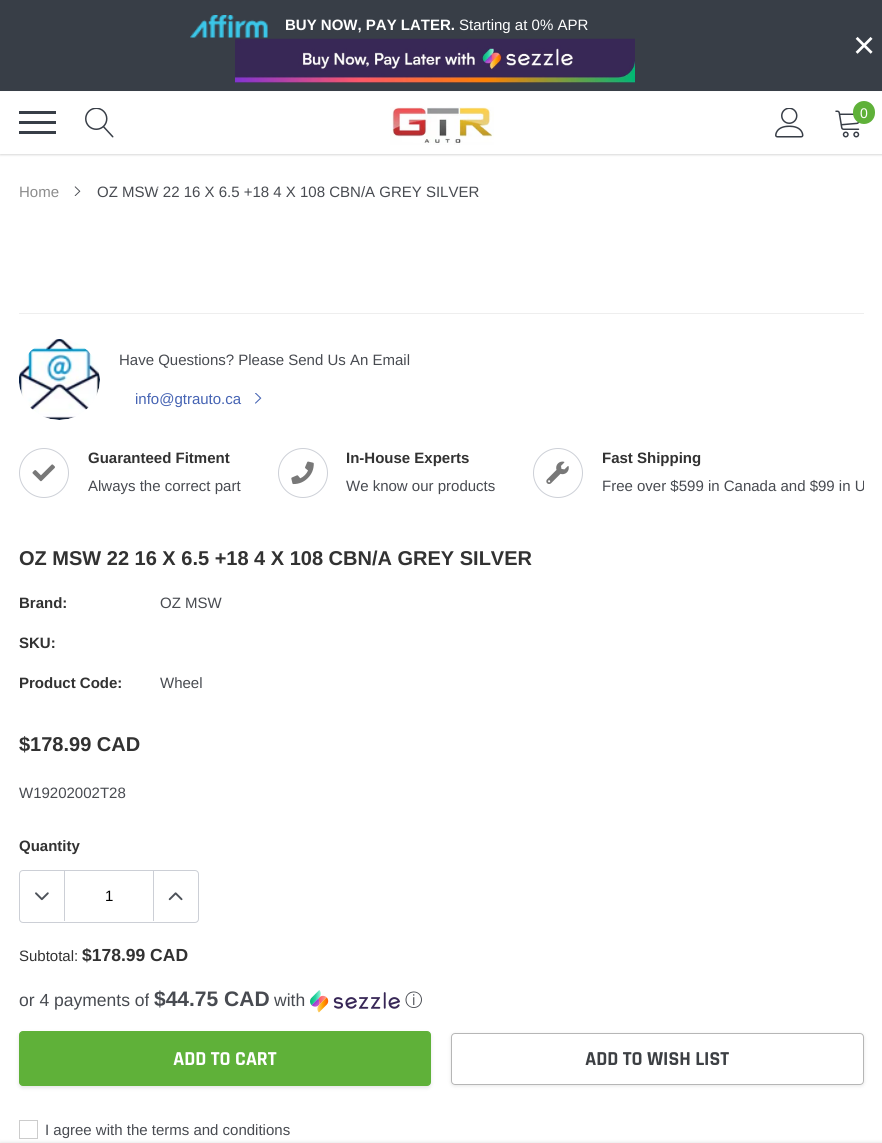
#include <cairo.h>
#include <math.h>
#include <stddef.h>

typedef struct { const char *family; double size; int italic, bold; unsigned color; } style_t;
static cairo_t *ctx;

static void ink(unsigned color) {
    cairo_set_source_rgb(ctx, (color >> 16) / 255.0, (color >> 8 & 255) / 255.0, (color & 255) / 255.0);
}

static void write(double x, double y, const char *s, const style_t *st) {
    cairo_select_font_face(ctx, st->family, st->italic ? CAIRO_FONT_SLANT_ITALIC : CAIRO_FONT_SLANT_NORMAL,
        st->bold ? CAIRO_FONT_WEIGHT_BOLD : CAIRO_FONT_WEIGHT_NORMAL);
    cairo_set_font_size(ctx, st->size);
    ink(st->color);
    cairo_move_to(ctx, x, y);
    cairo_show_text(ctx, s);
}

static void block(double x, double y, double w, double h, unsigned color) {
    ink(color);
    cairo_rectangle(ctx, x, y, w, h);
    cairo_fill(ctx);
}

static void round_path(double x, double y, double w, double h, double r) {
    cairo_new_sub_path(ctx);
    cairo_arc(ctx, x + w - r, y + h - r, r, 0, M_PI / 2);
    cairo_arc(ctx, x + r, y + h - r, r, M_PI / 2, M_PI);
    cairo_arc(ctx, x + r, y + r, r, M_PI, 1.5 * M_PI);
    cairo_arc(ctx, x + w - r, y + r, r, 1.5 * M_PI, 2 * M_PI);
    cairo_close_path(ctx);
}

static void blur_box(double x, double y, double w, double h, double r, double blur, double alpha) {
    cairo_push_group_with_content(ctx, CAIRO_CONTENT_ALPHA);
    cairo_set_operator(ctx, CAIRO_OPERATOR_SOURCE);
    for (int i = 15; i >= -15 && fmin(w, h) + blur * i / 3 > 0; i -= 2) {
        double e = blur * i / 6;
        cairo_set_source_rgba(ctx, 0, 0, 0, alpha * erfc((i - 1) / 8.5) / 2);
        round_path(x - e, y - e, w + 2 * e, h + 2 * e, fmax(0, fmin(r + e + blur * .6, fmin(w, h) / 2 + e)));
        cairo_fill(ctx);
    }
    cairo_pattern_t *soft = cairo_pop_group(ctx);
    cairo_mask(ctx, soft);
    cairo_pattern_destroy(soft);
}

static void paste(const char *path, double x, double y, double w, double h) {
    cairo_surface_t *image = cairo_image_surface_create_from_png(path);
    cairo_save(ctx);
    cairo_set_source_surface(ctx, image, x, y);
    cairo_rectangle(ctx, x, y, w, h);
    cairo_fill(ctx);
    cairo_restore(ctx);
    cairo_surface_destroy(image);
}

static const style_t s1 = {"Arimo", 15, 0, 1, 0xffffff};
static const style_t s2 = {"Arimo", 15, 0, 0, 0xffffff};
static const style_t s3 = {"Arimo", 38, 0, 0, 0xffffff};
static const style_t s4 = {"Arimo", 14, 0, 0, 0xffffff};
static const style_t s5 = {"Arimo", 15, 0, 0, 0x484b51};
static const style_t s6 = {"Arimo", 15, 0, 0, 0xf2f2f3};
static const style_t s7 = {"Arimo", 15, 0, 0, 0x8c8c8c};
static const style_t s8 = {"Arimo", 15, 0, 0, 0x4563b3};
static const style_t s9 = {"Arimo", 15, 0, 1, 0x323232};
static const style_t s10 = {"Arimo", 20, 0, 1, 0x323232};
static const style_t s11 = {"Arimo", 15, 0, 0, 0x000000};
static const style_t s12 = {"Arimo", 15, 0, 0, 0x323232};
static const style_t s13 = {"Arimo", 17.5, 0, 1, 0x323232};
static const style_t s14 = {"Arimo", 17.5, 0, 0, 0x484b51};
static const style_t s15 = {"Arimo", 21, 0, 1, 0x484b51};
static const style_t s16 = {"WenQuanYi Zen Hei Medium", 17.5, 0, 0, 0x484b51};
static const style_t s17 = {"Rajdhani", 20, 0, 1, 0xffffff};
static const style_t s18 = {"Rajdhani", 20, 0, 1, 0x3d4044};

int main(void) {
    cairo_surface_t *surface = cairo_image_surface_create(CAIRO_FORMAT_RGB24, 882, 1143);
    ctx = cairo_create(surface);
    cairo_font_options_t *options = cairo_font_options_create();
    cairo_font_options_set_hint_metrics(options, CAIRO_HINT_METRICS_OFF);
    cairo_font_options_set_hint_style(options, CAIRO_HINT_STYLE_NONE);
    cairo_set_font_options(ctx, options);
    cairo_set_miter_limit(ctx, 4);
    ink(0xffffff);
    cairo_paint(ctx);
    block(0, 0, 882, 91, 0x383e47);
    paste("pic1.png", 190, 15, 78, 23);
    write(285, 30, "BUY NOW, PAY LATER.", &s1);
    write(459, 30, "Starting at 0% APR", &s2);
    paste("pic2.png", 235, 38, 400, 45);
    write(853, 58, "×", &s3);
    ink(0x000000);
    blur_box(0, 93, 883, 62, 0, 1, 0.15);
    block(0, 92, 882, 62, 0xffffff);
    paste("pic3.png", 390, 107, 104, 38);
    paste("pic4.png", 775, 108, 29, 30);
    paste("pic5.png", 835, 110, 25, 28);
    ink(0x5fb139);
    round_path(853, 101, 22, 23, 11);
    cairo_fill(ctx);
    write(860, 118, "0", &s4);
    block(19, 121, 37, 3, 0x383e47);
    block(19, 111, 37, 3, 0x383e47);
    block(19, 131, 37, 3, 0x383e47);
    paste("pic6.png", 85, 108, 29, 30);
    write(97, 197, "OZ MSW 22 16 X 6.5 +18 4 X 108 CBN/A GREY SILVER", &s5);
    write(156, 189, ".", &s6);
    write(19, 197, "Home", &s7);
    paste("pic7.png", 74, 186, 7, 10);
    block(19, 313, 845, 1, 0xeeeeee);
    paste("pic8.png", 19, 339, 81, 81);
    write(119, 365, "Have Questions? Please Send Us An Email", &s5);
    write(135, 404, "info@gtrauto.ca", &s8);
    paste("pic9.png", 255, 393, 7, 11);
    cairo_arc(ctx, 44, 473, 24.5, 0, 2 * M_PI);
    ink(0xcdd0d7);
    cairo_set_line_width(ctx, 1);
    cairo_stroke(ctx);
    paste("pic10.png", 32, 464, 23, 18);
    write(88, 463, "Guaranteed Fitment", &s9);
    write(88, 491, "Always the correct part", &s5);
    cairo_new_path(ctx);
    cairo_arc(ctx, 303, 473, 24.5, 0, 2 * M_PI);
    ink(0xcdd0d7);
    cairo_stroke(ctx);
    paste("pic11.png", 291, 461, 23, 24);
    write(346, 463, "In-House Experts", &s9);
    write(346, 491, "We know our products", &s5);
    cairo_new_path(ctx);
    cairo_arc(ctx, 558, 473, 24.5, 0, 2 * M_PI);
    ink(0xcdd0d7);
    cairo_stroke(ctx);
    paste("pic12.png", 546, 461, 23, 23);
    write(602, 463, "Fast Shipping", &s9);
    cairo_save(ctx);
    cairo_rectangle(ctx, 19, 445, 845, 61);
    cairo_clip(ctx);
    write(602, 491, "Free over $599 in Canada and $99 in U", &s5);
    cairo_restore(ctx);
    write(19, 565, "OZ MSW 22 16 X 6.5 +18 4 X 108 CBN/A GREY SILVER", &s10);
    write(19, 608, "Brand:", &s9);
    write(160, 608, "OZ MSW", &s5);
    write(19, 648, "SKU:", &s9);
    write(19, 688, "Product Code:", &s9);
    write(160, 688, "Wheel", &s5);
    write(19, 751, "$178.99 CAD", &s10);
    write(19, 798, "W19202002T28", &s5);
    write(19, 851, "Quantity", &s9);
    round_path(19.5, 870.5, 179, 52, 3.5);
    ink(0xcccfd6);
    cairo_stroke(ctx);
    block(64, 871, 1, 50, 0xcccfd6);
    paste("pic13.png", 35, 892, 14, 9);
    write(105, 901, "1", &s11);
    block(153, 871, 1, 50, 0xcccfd6);
    paste("pic14.png", 168, 892, 15, 9);
    write(19, 961, "Subtotal:", &s12);
    write(82, 961, "$178.99 CAD", &s13);
    write(19, 1006, "or 4 payments of", &s14);
    write(154, 1006, "$44.75 CAD", &s15);
    write(274, 1006, "with", &s14);
    paste("pic15.png", 310, 990, 90, 23);
    write(405, 1006, "ⓘ", &s16);
    ink(0x000000);
    blur_box(19, 1033, 412, 55, 4, 2, 0.1);
    ink(0x5fb139);
    round_path(19.5, 1031.5, 411, 54, 3.5);
    cairo_fill_preserve(ctx);
    cairo_stroke(ctx);
    write(173, 1065, "ADD TO CART", &s17);
    cairo_save(ctx);
    cairo_set_fill_rule(ctx, CAIRO_FILL_RULE_EVEN_ODD);
    cairo_new_path(ctx);
    cairo_move_to(ctx, 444, 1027);
    cairo_line_to(ctx, 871, 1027);
    cairo_line_to(ctx, 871, 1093);
    cairo_line_to(ctx, 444, 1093);
    cairo_close_path(ctx);
    cairo_move_to(ctx, 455, 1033);
    cairo_line_to(ctx, 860, 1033);
    cairo_curve_to(ctx, 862, 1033, 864, 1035, 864, 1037);
    cairo_line_to(ctx, 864, 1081);
    cairo_curve_to(ctx, 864, 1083, 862, 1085, 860, 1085);
    cairo_line_to(ctx, 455, 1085);
    cairo_curve_to(ctx, 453, 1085, 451, 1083, 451, 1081);
    cairo_line_to(ctx, 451, 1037);
    cairo_curve_to(ctx, 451, 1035, 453, 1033, 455, 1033);
    cairo_close_path(ctx);
    cairo_clip(ctx);
    ink(0x000000);
    blur_box(451, 1034, 413, 52, 4, 2, 0.1);
    cairo_restore(ctx);
    round_path(451.5, 1033.5, 412, 51, 3.5);
    ink(0xb6b6b6);
    cairo_stroke(ctx);
    write(585, 1065, "ADD TO WISH LIST", &s18);
    cairo_rectangle(ctx, 19.5, 1120.5, 18, 18);
    ink(0xcccccc);
    cairo_stroke(ctx);
    write(45, 1135, "I agree with the terms and conditions", &s5);
    ink(0x000000);
    blur_box(0, 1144, 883, 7, 0, 2.5, 0.2);
    cairo_surface_write_to_png(surface, "screenshot.png");
    cairo_font_options_destroy(options);
    cairo_destroy(ctx);
    cairo_surface_destroy(surface);
    return 0;
}
